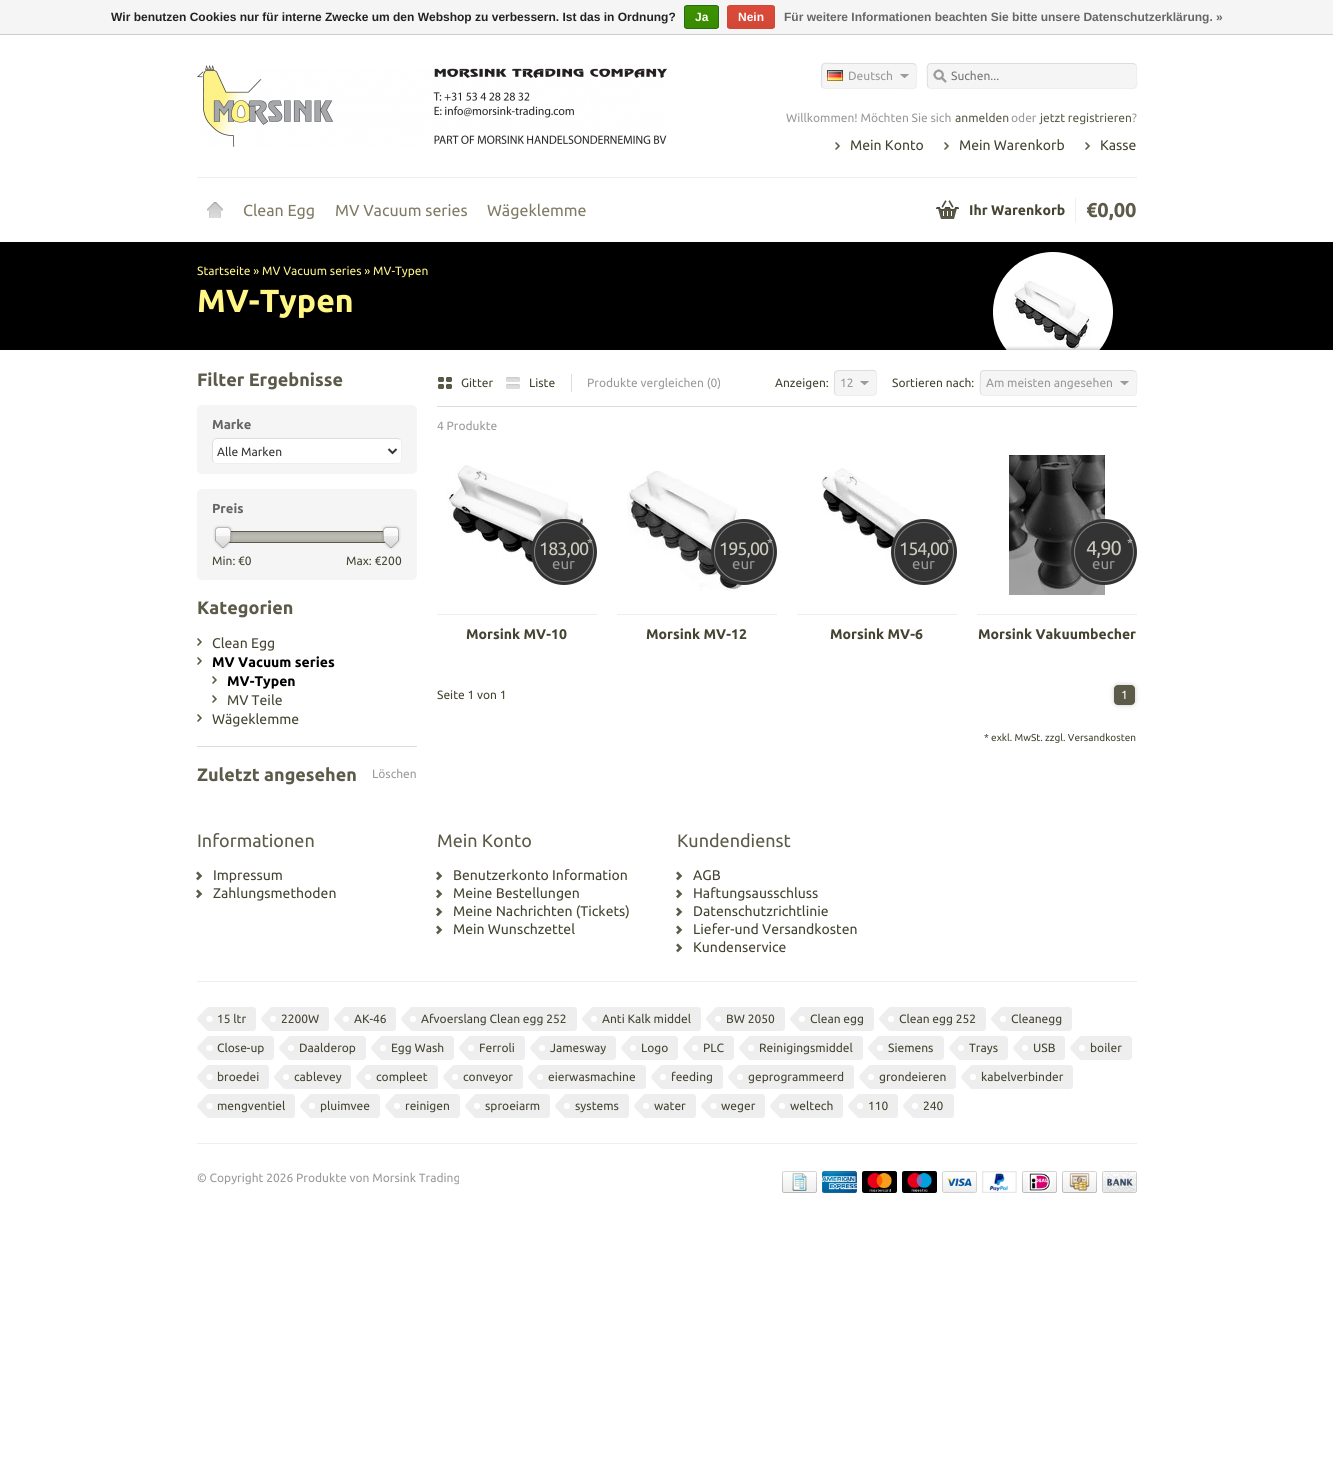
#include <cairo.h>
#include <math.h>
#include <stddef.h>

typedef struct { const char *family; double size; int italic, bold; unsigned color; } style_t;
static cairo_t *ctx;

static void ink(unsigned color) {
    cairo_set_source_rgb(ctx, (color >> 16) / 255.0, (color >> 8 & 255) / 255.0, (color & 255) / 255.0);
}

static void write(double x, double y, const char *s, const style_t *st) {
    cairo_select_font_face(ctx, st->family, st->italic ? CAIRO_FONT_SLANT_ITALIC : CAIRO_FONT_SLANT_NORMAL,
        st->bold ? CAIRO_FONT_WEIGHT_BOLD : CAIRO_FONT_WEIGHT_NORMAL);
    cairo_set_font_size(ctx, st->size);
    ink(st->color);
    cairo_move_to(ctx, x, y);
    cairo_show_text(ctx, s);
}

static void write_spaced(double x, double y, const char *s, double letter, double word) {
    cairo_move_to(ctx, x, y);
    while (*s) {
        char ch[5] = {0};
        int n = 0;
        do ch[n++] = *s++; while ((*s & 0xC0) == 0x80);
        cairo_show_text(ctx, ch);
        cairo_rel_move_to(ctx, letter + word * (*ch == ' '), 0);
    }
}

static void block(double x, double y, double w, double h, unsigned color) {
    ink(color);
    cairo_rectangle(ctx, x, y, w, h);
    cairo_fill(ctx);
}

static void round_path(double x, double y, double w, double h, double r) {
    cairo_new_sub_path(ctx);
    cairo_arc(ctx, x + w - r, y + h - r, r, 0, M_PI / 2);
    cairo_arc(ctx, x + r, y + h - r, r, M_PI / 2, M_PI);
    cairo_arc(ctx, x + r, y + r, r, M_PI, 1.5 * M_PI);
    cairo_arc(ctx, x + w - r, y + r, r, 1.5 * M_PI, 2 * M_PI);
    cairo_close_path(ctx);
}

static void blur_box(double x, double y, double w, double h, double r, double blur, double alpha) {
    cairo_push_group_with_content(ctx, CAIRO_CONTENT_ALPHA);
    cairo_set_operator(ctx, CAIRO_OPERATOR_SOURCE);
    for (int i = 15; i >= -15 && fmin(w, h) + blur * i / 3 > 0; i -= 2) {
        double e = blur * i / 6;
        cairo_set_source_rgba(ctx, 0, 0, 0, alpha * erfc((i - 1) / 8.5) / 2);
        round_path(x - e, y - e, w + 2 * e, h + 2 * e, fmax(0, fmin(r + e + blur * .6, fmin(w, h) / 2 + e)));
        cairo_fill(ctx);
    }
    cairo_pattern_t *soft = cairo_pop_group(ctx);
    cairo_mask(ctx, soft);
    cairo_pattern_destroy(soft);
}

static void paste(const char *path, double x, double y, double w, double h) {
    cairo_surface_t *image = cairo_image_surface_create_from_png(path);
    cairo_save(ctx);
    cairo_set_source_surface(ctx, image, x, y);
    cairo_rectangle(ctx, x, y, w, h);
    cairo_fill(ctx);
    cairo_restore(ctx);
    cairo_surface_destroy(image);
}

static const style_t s1 = {"Liberation Sans", 12, 0, 1, 0x222222};
static const style_t s2 = {"Liberation Sans", 12, 0, 1, 0xffffff};
static const style_t s3 = {"Liberation Sans", 12, 0, 1, 0x666666};
static const style_t s4 = {"Ubuntu", 12, 0, 0, 0x999999};
static const style_t s5 = {"Ubuntu", 12, 0, 0, 0x757575};
static const style_t s6 = {"Ubuntu", 12, 0, 0, 0x5c5a48};
static const style_t s7 = {"Ubuntu", 14, 0, 0, 0x454331};
static const style_t s8 = {"Ubuntu", 16, 0, 0, 0x807b66};
static const style_t s9 = {"Ubuntu", 14, 0, 1, 0x454331};
static const style_t s10 = {"Ubuntu", 20, 0, 1, 0x5c5a48};
static const style_t s11 = {"Ubuntu", 12, 0, 0, 0xfff685};
static const style_t s12 = {"Ubuntu", 32, 0, 1, 0xfff685};
static const style_t s13 = {"Ubuntu", 18, 0, 1, 0x5c5a48};
static const style_t s14 = {"Ubuntu", 13, 0, 1, 0x666666};
static const style_t s15 = {"Ubuntu", 12, 0, 0, 0x333333};
static const style_t s16 = {"Ubuntu", 12, 0, 0, 0x454331};
static const style_t s17 = {"Ubuntu", 14, 0, 1, 0x000000};
static const style_t s18 = {"Ubuntu", 15, 0, 0, 0x999999};
static const style_t s19 = {"Ubuntu", 12, 0, 0, 0xffffff};
static const style_t s20 = {"Ubuntu", 10, 0, 0, 0x454331};
static const style_t s21 = {"Ubuntu", 18, 0, 0, 0x5c5a48};

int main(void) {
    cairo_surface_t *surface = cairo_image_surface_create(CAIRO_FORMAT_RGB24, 1333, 1470);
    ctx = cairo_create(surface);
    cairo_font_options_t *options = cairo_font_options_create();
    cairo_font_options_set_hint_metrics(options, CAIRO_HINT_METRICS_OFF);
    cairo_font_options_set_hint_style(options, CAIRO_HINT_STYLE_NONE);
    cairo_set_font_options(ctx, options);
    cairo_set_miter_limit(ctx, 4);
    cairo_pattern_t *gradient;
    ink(0xffffff);
    cairo_paint(ctx);
    block(0, 0, 1333, 34, 0xf5f5f5);
    block(0, 34, 1333, 1, 0xcccccc);
    write(111, 21, "Wir benutzen Cookies nur für interne Zwecke um den Webshop zu verbessern. Ist das in Ordnung?", &s1);
    cairo_save(ctx);
    round_path(684, 5, 35, 24, 3);
    cairo_clip(ctx);
    gradient = cairo_pattern_create_linear(702, 6, 702, 28);
    cairo_pattern_add_color_stop_rgba(gradient, 0, 0.235, 0.576, 0, 1);
    cairo_pattern_add_color_stop_rgba(gradient, 1, 0.224, 0.541, 0, 1);
    cairo_set_source(ctx, gradient);
    cairo_pattern_destroy(gradient);
    cairo_rectangle(ctx, 684, 6, 35, 22);
    cairo_fill(ctx);
    cairo_restore(ctx);
    round_path(684.5, 5.5, 34, 23, 2.5);
    ink(0x29691d);
    cairo_set_line_width(ctx, 1);
    cairo_stroke(ctx);
    write(695, 21, "Ja", &s2);
    cairo_save(ctx);
    round_path(727, 5, 48, 24, 3);
    cairo_clip(ctx);
    gradient = cairo_pattern_create_linear(751, 6, 751, 28);
    cairo_pattern_add_color_stop_rgba(gradient, 0, 0.863, 0.29, 0.22, 1);
    cairo_pattern_add_color_stop_rgba(gradient, 1, 0.82, 0.282, 0.212, 1);
    cairo_set_source(ctx, gradient);
    cairo_pattern_destroy(gradient);
    cairo_rectangle(ctx, 727, 6, 48, 22);
    cairo_fill(ctx);
    cairo_restore(ctx);
    round_path(727.5, 5.5, 47, 23, 2.5);
    ink(0xd14836);
    cairo_stroke(ctx);
    write(738, 21, "Nein", &s2);
    write(784, 21, "Für weitere Informationen beachten Sie bitte unsere Datenschutzerklärung. »", &s3);
    paste("pic1.png", 197, 65, 470, 82);
    ink(0xf5f5f5);
    round_path(821, 63, 96, 26, 4);
    cairo_fill(ctx);
    paste("pic2.png", 900, 74, 9, 4);
    cairo_new_path(ctx);
    cairo_move_to(ctx, 915.5, 64.5);
    cairo_curve_to(ctx, 917.5, 66.5, 916.5, 73.5, 916.5, 76);
    cairo_curve_to(ctx, 916.5, 92, 917, 88.5, 898.5, 88.5);
    cairo_line_to(ctx, 825, 88.5);
    cairo_line_to(ctx, 822.5, 87.5);
    ink(0xeeeeee);
    cairo_stroke(ctx);
    cairo_new_path(ctx);
    cairo_move_to(ctx, 822.5, 87.5);
    cairo_curve_to(ctx, 820.5, 85.5, 821.5, 78.5, 821.5, 76);
    cairo_curve_to(ctx, 821.5, 60, 821, 63.5, 839.5, 63.5);
    cairo_line_to(ctx, 913, 63.5);
    cairo_line_to(ctx, 915.5, 64.5);
    ink(0xdddddd);
    cairo_stroke(ctx);
    paste("pic3.png", 827, 70, 16, 11);
    write(848, 80, "Deutsch", &s4);
    ink(0xf5f5f5);
    round_path(927, 63, 210, 26, 4);
    cairo_fill(ctx);
    paste("pic4.png", 933, 69, 14, 14);
    cairo_new_path(ctx);
    cairo_move_to(ctx, 1135.5, 64.5);
    cairo_curve_to(ctx, 1137.5, 66.5, 1136.5, 73.5, 1136.5, 76);
    cairo_curve_to(ctx, 1136.5, 78.5, 1138, 86, 1135, 88);
    cairo_line_to(ctx, 1133, 88.5);
    cairo_line_to(ctx, 931, 88.5);
    cairo_line_to(ctx, 928.5, 87.5);
    ink(0xeeeeee);
    cairo_stroke(ctx);
    cairo_new_path(ctx);
    cairo_move_to(ctx, 928.5, 87.5);
    cairo_curve_to(ctx, 926.5, 85.5, 927.5, 78.5, 927.5, 76);
    cairo_curve_to(ctx, 927.5, 73.5, 926, 66, 929, 64);
    cairo_line_to(ctx, 931, 63.5);
    cairo_line_to(ctx, 1133, 63.5);
    cairo_line_to(ctx, 1135.5, 64.5);
    ink(0xdddddd);
    cairo_stroke(ctx);
    write(951, 80, "Suchen...", &s5);
    write(786, 122, "Willkommen! Möchten Sie sich", &s4);
    write(955, 122, "anmelden", &s6);
    write(1011, 122, "oder", &s4);
    write(1040, 122, "jetzt registrieren", &s6);
    write(1132, 122, "?", &s4);
    block(835, 142, 6, 8, 0x5c5a48);
    paste("pic5.png", 835, 137, 89, 16);
    block(944, 142, 6, 8, 0x5c5a48);
    paste("pic6.png", 944, 137, 121, 16);
    block(1085, 142, 6, 8, 0x5c5a48);
    paste("pic7.png", 1085, 137, 52, 16);
    write(850, 150, "Mein Konto", &s7);
    write(959, 150, "Mein Warenkorb", &s7);
    write(1100, 150, "Kasse", &s7);
    block(197, 177, 940, 1, 0xeeeeee);
    block(207, 202, 16, 16, 0xdddddd);
    paste("pic8.png", 197, 194, 36, 32);
    write(243, 216, "Clean Egg", &s8);
    write(335, 216, "MV Vacuum series", &s8);
    write(487, 216, "Wägeklemme", &s8);
    block(936, 200, 23, 19, 0x5c5a48);
    paste("pic9.png", 935, 198, 24, 24);
    block(1075, 198, 1, 24, 0xeeeeee);
    write(969, 215, "Ihr Warenkorb", &s9);
    write(1086, 217, "€0,00", &s10);
    block(0, 242, 1333, 108, 0x000000);
    write(197, 275, "Startseite » MV Vacuum series » MV-Typen", &s11);
    cairo_save(ctx);
    cairo_rectangle(ctx, 0, 242, 1333, 108);
    cairo_clip(ctx);
    ink(0xffffff);
    cairo_arc(ctx, 1053, 312, 60, 0, 2 * M_PI);
    cairo_fill(ctx);
    cairo_restore(ctx);
    paste("pic10.png", 1013, 281, 78, 68);
    write(197, 312, "MV-Typen", &s12);
    paste("pic11.png", 1004, 346, 98, 4);
    write(197, 386, "Filter Ergebnisse", &s13);
    ink(0xf5f5f5);
    round_path(197, 405, 220, 69, 5);
    cairo_fill(ctx);
    write(212, 429, "Marke", &s14);
    ink(0xffffff);
    round_path(212, 438, 190, 26, 4);
    cairo_fill(ctx);
    cairo_new_path(ctx);
    cairo_move_to(ctx, 400.5, 439.5);
    cairo_curve_to(ctx, 402.5, 441.5, 401.5, 448.5, 401.5, 451);
    cairo_curve_to(ctx, 401.5, 453.5, 402.5, 460.5, 400, 462.5);
    cairo_line_to(ctx, 398.5, 463.5);
    cairo_line_to(ctx, 216, 463.5);
    cairo_line_to(ctx, 213.5, 462.5);
    ink(0xeeeeee);
    cairo_stroke(ctx);
    cairo_new_path(ctx);
    cairo_move_to(ctx, 213.5, 462.5);
    cairo_curve_to(ctx, 211.5, 460.5, 212.5, 453.5, 212.5, 451);
    cairo_curve_to(ctx, 212.5, 448.5, 211.5, 441.5, 214, 439.5);
    cairo_line_to(ctx, 215.5, 438.5);
    cairo_line_to(ctx, 398, 438.5);
    cairo_line_to(ctx, 400.5, 439.5);
    ink(0xdddddd);
    cairo_stroke(ctx);
    cairo_new_path(ctx);
    cairo_move_to(ctx, 388.5, 449);
    cairo_line_to(ctx, 392.5, 453);
    cairo_line_to(ctx, 396.5, 449);
    ink(0x333333);
    cairo_set_line_width(ctx, 2);
    cairo_stroke(ctx);
    write(217, 456, "Alle Marken", &s15);
    ink(0xf5f5f5);
    round_path(197, 489, 220, 91, 5);
    cairo_fill(ctx);
    write(212, 513, "Preis", &s14);
    block(229, 532, 156, 10, 0xbdbdb5);
    paste("pic14.png", 229, 532, 156, 10);
    cairo_rectangle(ctx, 222.5, 531.5, 169, 11);
    ink(0x5c5a48);
    cairo_set_line_width(ctx, 1);
    cairo_stroke(ctx);
    paste("pic12.png", 213, 525, 20, 24);
    paste("pic13.png", 381, 525, 20, 24);
    write(212, 565, "Min: €0", &s16);
    write(346, 565, "Max: €200", &s16);
    block(197, 746, 220, 1, 0xdddddd);
    write(197, 614, "Kategorien", &s13);
    block(197, 638, 5, 8, 0x5c5a48);
    paste("pic15.png", 197, 633, 15, 15);
    write(212, 648, "Clean Egg", &s7);
    block(197, 657, 5, 8, 0x5c5a48);
    paste("pic15.png", 197, 652, 15, 15);
    write(212, 667, "MV Vacuum series", &s17);
    block(212, 676, 5, 8, 0x5c5a48);
    paste("pic15.png", 212, 671, 15, 15);
    write(227, 686, "MV-Typen", &s17);
    block(212, 695, 5, 8, 0x5c5a48);
    paste("pic15.png", 212, 690, 15, 15);
    write(227, 705, "MV Teile", &s7);
    block(197, 714, 5, 8, 0x5c5a48);
    paste("pic15.png", 197, 709, 15, 15);
    write(212, 724, "Wägeklemme", &s7);
    write(197, 781, "Zuletzt angesehen", &s13);
    write(372, 778, "Löschen", &s4);
    block(437, 406, 700, 1, 0xdddddd);
    block(438, 377, 14, 12, 0x5c5a48);
    paste("pic16.png", 437, 375, 16, 16);
    write(461, 387, "Gitter", &s16);
    block(506, 377, 14, 12, 0xdddddd);
    paste("pic17.png", 505, 375, 16, 16);
    write(529, 387, "Liste", &s16);
    block(571, 374, 1, 18, 0xdddddd);
    write(587, 387, "Produkte vergleichen (0)", &s4);
    write(775, 387, "Anzeigen:", &s16);
    ink(0xf5f5f5);
    round_path(834, 370, 43, 26, 4);
    cairo_fill(ctx);
    paste("pic2.png", 860, 381, 9, 4);
    cairo_new_path(ctx);
    cairo_move_to(ctx, 875.5, 371.5);
    cairo_curve_to(ctx, 877.5, 373.5, 876.5, 380.5, 876.5, 383);
    cairo_curve_to(ctx, 876.5, 394.5, 878.5, 395.5, 867, 395.5);
    cairo_line_to(ctx, 844, 395.5);
    cairo_curve_to(ctx, 842, 395.5, 837.5, 396.5, 835.5, 394.5);
    ink(0xeeeeee);
    cairo_stroke(ctx);
    cairo_new_path(ctx);
    cairo_move_to(ctx, 835.5, 394.5);
    cairo_curve_to(ctx, 833.5, 392.5, 834.5, 385.5, 834.5, 383);
    cairo_curve_to(ctx, 834.5, 371.5, 832.5, 370.5, 844, 370.5);
    cairo_line_to(ctx, 867, 370.5);
    cairo_curve_to(ctx, 869, 370.5, 873.5, 369.5, 875.5, 371.5);
    ink(0xdddddd);
    cairo_stroke(ctx);
    write(840, 387, "12", &s4);
    write(892, 387, "Sortieren nach:", &s16);
    ink(0xf5f5f5);
    round_path(980, 370, 157, 26, 4);
    cairo_fill(ctx);
    paste("pic2.png", 1120, 381, 9, 4);
    cairo_new_path(ctx);
    cairo_move_to(ctx, 1135.5, 371.5);
    cairo_curve_to(ctx, 1138, 374, 1136.5, 383, 1136.5, 386);
    cairo_curve_to(ctx, 1136.5, 388.5, 1138, 395.5, 1133, 395.5);
    cairo_line_to(ctx, 984, 395.5);
    cairo_line_to(ctx, 981.5, 394.5);
    ink(0xeeeeee);
    cairo_stroke(ctx);
    cairo_new_path(ctx);
    cairo_move_to(ctx, 981.5, 394.5);
    cairo_curve_to(ctx, 979, 392, 980.5, 383, 980.5, 380);
    cairo_curve_to(ctx, 980.5, 377.5, 979, 370.5, 984, 370.5);
    cairo_line_to(ctx, 1133, 370.5);
    cairo_line_to(ctx, 1135.5, 371.5);
    ink(0xdddddd);
    cairo_stroke(ctx);
    write(986, 387, "Am meisten angesehen", &s4);
    write(437, 430, "4 Produkte", &s4);
    paste("pic18.png", 447, 465, 138, 112);
    ink(0x333333);
    cairo_arc(ctx, 564, 552, 33, 0, 2 * M_PI);
    cairo_fill(ctx);
    cairo_arc(ctx, 564, 552, 29.5, 0, 2 * M_PI);
    ink(0x858585);
    cairo_stroke(ctx);
    ink(0xcccbbe);
    write_spaced(587, 547, "*", -1, 0);
    cairo_set_font_size(ctx, 18);
    write_spaced(539, 555, "183,00", -1, 0);
    write(552, 569, "eur", &s18);
    block(437, 614, 160, 1, 0xeeeeee);
    write(466, 639, "Morsink MV-10", &s9);
    paste("pic19.png", 627, 471, 136, 120);
    ink(0x333333);
    cairo_arc(ctx, 744, 552, 33, 0, 2 * M_PI);
    cairo_fill(ctx);
    cairo_arc(ctx, 744, 552, 29.5, 0, 2 * M_PI);
    ink(0x858585);
    cairo_stroke(ctx);
    cairo_select_font_face(ctx, "Ubuntu", CAIRO_FONT_SLANT_NORMAL, CAIRO_FONT_WEIGHT_NORMAL);
    cairo_set_font_size(ctx, 12);
    ink(0xcccbbe);
    write_spaced(767, 547, "*", -1, 0);
    cairo_set_font_size(ctx, 18);
    write_spaced(719, 555, "195,00", -1, 0);
    write(732, 569, "eur", &s18);
    block(617, 614, 160, 1, 0xeeeeee);
    write(646, 639, "Morsink MV-12", &s9);
    paste("pic20.png", 821, 468, 122, 111);
    ink(0x333333);
    cairo_arc(ctx, 924, 552, 33, 0, 2 * M_PI);
    cairo_fill(ctx);
    cairo_arc(ctx, 924, 552, 29.5, 0, 2 * M_PI);
    ink(0x858585);
    cairo_stroke(ctx);
    cairo_select_font_face(ctx, "Ubuntu", CAIRO_FONT_SLANT_NORMAL, CAIRO_FONT_WEIGHT_NORMAL);
    cairo_set_font_size(ctx, 12);
    ink(0xcccbbe);
    write_spaced(947, 547, "*", -1, 0);
    cairo_set_font_size(ctx, 18);
    write_spaced(899, 555, "154,00", -1, 0);
    write(912, 569, "eur", &s18);
    block(797, 614, 160, 1, 0xeeeeee);
    write(830, 639, "Morsink MV-6", &s9);
    paste("pic21.png", 1008, 455, 99, 140);
    ink(0x333333);
    cairo_arc(ctx, 1104, 552, 33, 0, 2 * M_PI);
    cairo_fill(ctx);
    cairo_arc(ctx, 1104, 552, 29.5, 0, 2 * M_PI);
    ink(0x858585);
    cairo_stroke(ctx);
    cairo_select_font_face(ctx, "Ubuntu", CAIRO_FONT_SLANT_NORMAL, CAIRO_FONT_WEIGHT_NORMAL);
    cairo_set_font_size(ctx, 20);
    ink(0xcccbbe);
    write_spaced(1086, 555, "4,90", -1, 0);
    cairo_set_font_size(ctx, 12);
    write_spaced(1127, 547, "*", -1, 0);
    write(1092, 569, "eur", &s18);
    block(977, 614, 160, 1, 0xeeeeee);
    write(978, 639, "Morsink Vakuumbecher", &s9);
    write(437, 699, "Seite 1 von 1", &s16);
    ink(0xcccccc);
    blur_box(1114, 685, 21, 20, 4, 2.5, 1);
    ink(0x5c5a48);
    round_path(1114, 685, 21, 20, 4);
    cairo_fill(ctx);
    write(1121, 699, "1", &s19);
    write(984, 741, "* exkl. MwSt. zzgl. Versandkosten", &s20);
    block(197, 981, 940, 1, 0xeeeeee);
    write(197, 847, "Informationen", &s21);
    paste("pic22.png", 196, 871, 7, 10);
    write(213, 880, "Impressum", &s7);
    paste("pic22.png", 196, 889, 7, 10);
    write(213, 898, "Zahlungsmethoden", &s7);
    write(437, 847, "Mein Konto", &s21);
    paste("pic22.png", 436, 871, 7, 10);
    write(453, 880, "Benutzerkonto Information", &s7);
    paste("pic22.png", 436, 889, 7, 10);
    write(453, 898, "Meine Bestellungen", &s7);
    paste("pic22.png", 436, 907, 7, 10);
    write(453, 916, "Meine Nachrichten (Tickets)", &s7);
    paste("pic22.png", 436, 925, 7, 10);
    write(453, 934, "Mein Wunschzettel", &s7);
    write(677, 847, "Kundendienst", &s21);
    paste("pic22.png", 676, 871, 7, 10);
    write(693, 880, "AGB", &s7);
    paste("pic22.png", 676, 889, 7, 10);
    write(693, 898, "Haftungsausschluss", &s7);
    paste("pic22.png", 676, 907, 7, 10);
    write(693, 916, "Datenschutzrichtlinie", &s7);
    paste("pic22.png", 676, 925, 7, 10);
    write(693, 934, "Liefer-und Versandkosten", &s7);
    paste("pic22.png", 676, 943, 7, 10);
    write(693, 952, "Kundenservice", &s7);
    block(197, 1143, 940, 1, 0xeeeeee);
    cairo_new_path(ctx);
    cairo_move_to(ctx, 197, 1007);
    cairo_line_to(ctx, 253, 1007);
    cairo_curve_to(ctx, 254.5, 1007, 256, 1008.5, 256, 1010);
    cairo_line_to(ctx, 256, 1028);
    cairo_curve_to(ctx, 256, 1029.5, 254.5, 1031, 253, 1031);
    cairo_line_to(ctx, 197, 1031);
    cairo_close_path(ctx);
    cairo_fill(ctx);
    paste("pic23.png", 197, 1007, 16, 24);
    write(217, 1023, "15 ltr", &s16);
    ink(0xeeeeee);
    cairo_new_path(ctx);
    cairo_move_to(ctx, 261, 1007);
    cairo_line_to(ctx, 326, 1007);
    cairo_curve_to(ctx, 327.5, 1007, 329, 1008.5, 329, 1010);
    cairo_line_to(ctx, 329, 1028);
    cairo_curve_to(ctx, 329, 1029.5, 327.5, 1031, 326, 1031);
    cairo_line_to(ctx, 261, 1031);
    cairo_close_path(ctx);
    cairo_fill(ctx);
    paste("pic24.png", 261, 1007, 15, 24);
    write(281, 1023, "2200W", &s16);
    ink(0xeeeeee);
    cairo_new_path(ctx);
    cairo_move_to(ctx, 334, 1007);
    cairo_line_to(ctx, 393, 1007);
    cairo_curve_to(ctx, 394.5, 1007, 396, 1008.5, 396, 1010);
    cairo_line_to(ctx, 396, 1028);
    cairo_curve_to(ctx, 396, 1029.5, 394.5, 1031, 393, 1031);
    cairo_line_to(ctx, 334, 1031);
    cairo_close_path(ctx);
    cairo_fill(ctx);
    paste("pic24.png", 334, 1007, 15, 24);
    write(354, 1023, "AK-46", &s16);
    ink(0xeeeeee);
    cairo_new_path(ctx);
    cairo_move_to(ctx, 401, 1007);
    cairo_line_to(ctx, 574, 1007);
    cairo_curve_to(ctx, 575.5, 1007, 577, 1008.5, 577, 1010);
    cairo_line_to(ctx, 577, 1028);
    cairo_curve_to(ctx, 577, 1029.5, 575.5, 1031, 574, 1031);
    cairo_line_to(ctx, 401, 1031);
    cairo_close_path(ctx);
    cairo_fill(ctx);
    paste("pic24.png", 401, 1007, 15, 24);
    write(421, 1023, "Afvoerslang Clean egg 252", &s16);
    ink(0xeeeeee);
    cairo_new_path(ctx);
    cairo_move_to(ctx, 582, 1007);
    cairo_line_to(ctx, 698, 1007);
    cairo_curve_to(ctx, 699.5, 1007, 701, 1008.5, 701, 1010);
    cairo_line_to(ctx, 701, 1028);
    cairo_curve_to(ctx, 701, 1029.5, 699.5, 1031, 698, 1031);
    cairo_line_to(ctx, 582, 1031);
    cairo_close_path(ctx);
    cairo_fill(ctx);
    paste("pic24.png", 582, 1007, 15, 24);
    write(602, 1023, "Anti Kalk middel", &s16);
    ink(0xeeeeee);
    cairo_new_path(ctx);
    cairo_move_to(ctx, 706, 1007);
    cairo_line_to(ctx, 782, 1007);
    cairo_curve_to(ctx, 783.5, 1007, 785, 1008.5, 785, 1010);
    cairo_line_to(ctx, 785, 1028);
    cairo_curve_to(ctx, 785, 1029.5, 783.5, 1031, 782, 1031);
    cairo_line_to(ctx, 706, 1031);
    cairo_close_path(ctx);
    cairo_fill(ctx);
    paste("pic24.png", 706, 1007, 15, 24);
    write(726, 1023, "BW 2050", &s16);
    ink(0xeeeeee);
    cairo_new_path(ctx);
    cairo_move_to(ctx, 790, 1007);
    cairo_line_to(ctx, 871, 1007);
    cairo_curve_to(ctx, 872.5, 1007, 874, 1008.5, 874, 1010);
    cairo_line_to(ctx, 874, 1028);
    cairo_curve_to(ctx, 874, 1029.5, 872.5, 1031, 871, 1031);
    cairo_line_to(ctx, 790, 1031);
    cairo_close_path(ctx);
    cairo_fill(ctx);
    paste("pic24.png", 790, 1007, 15, 24);
    write(810, 1023, "Clean egg", &s16);
    ink(0xeeeeee);
    cairo_new_path(ctx);
    cairo_move_to(ctx, 879, 1007);
    cairo_line_to(ctx, 983, 1007);
    cairo_curve_to(ctx, 984.5, 1007, 986, 1008.5, 986, 1010);
    cairo_line_to(ctx, 986, 1028);
    cairo_curve_to(ctx, 986, 1029.5, 984.5, 1031, 983, 1031);
    cairo_line_to(ctx, 879, 1031);
    cairo_close_path(ctx);
    cairo_fill(ctx);
    paste("pic24.png", 879, 1007, 15, 24);
    write(899, 1023, "Clean egg 252", &s16);
    ink(0xeeeeee);
    cairo_new_path(ctx);
    cairo_move_to(ctx, 991, 1007);
    cairo_line_to(ctx, 1069, 1007);
    cairo_curve_to(ctx, 1070.5, 1007, 1072, 1008.5, 1072, 1010);
    cairo_line_to(ctx, 1072, 1028);
    cairo_curve_to(ctx, 1072, 1029.5, 1070.5, 1031, 1069, 1031);
    cairo_line_to(ctx, 991, 1031);
    cairo_close_path(ctx);
    cairo_fill(ctx);
    paste("pic24.png", 991, 1007, 15, 24);
    write(1011, 1023, "Cleanegg", &s16);
    ink(0xeeeeee);
    cairo_new_path(ctx);
    cairo_move_to(ctx, 197, 1036);
    cairo_line_to(ctx, 271, 1036);
    cairo_curve_to(ctx, 272.5, 1036, 274, 1037.5, 274, 1039);
    cairo_line_to(ctx, 274, 1057);
    cairo_curve_to(ctx, 274, 1058.5, 272.5, 1060, 271, 1060);
    cairo_line_to(ctx, 197, 1060);
    cairo_close_path(ctx);
    cairo_fill(ctx);
    paste("pic23.png", 197, 1036, 16, 24);
    write(217, 1052, "Close-up", &s16);
    ink(0xeeeeee);
    cairo_new_path(ctx);
    cairo_move_to(ctx, 279, 1036);
    cairo_line_to(ctx, 363, 1036);
    cairo_curve_to(ctx, 364.5, 1036, 366, 1037.5, 366, 1039);
    cairo_line_to(ctx, 366, 1057);
    cairo_curve_to(ctx, 366, 1058.5, 364.5, 1060, 363, 1060);
    cairo_line_to(ctx, 279, 1060);
    cairo_close_path(ctx);
    cairo_fill(ctx);
    paste("pic24.png", 279, 1036, 15, 24);
    write(299, 1052, "Daalderop", &s16);
    ink(0xeeeeee);
    cairo_new_path(ctx);
    cairo_move_to(ctx, 371, 1036);
    cairo_line_to(ctx, 451, 1036);
    cairo_curve_to(ctx, 452.5, 1036, 454, 1037.5, 454, 1039);
    cairo_line_to(ctx, 454, 1057);
    cairo_curve_to(ctx, 454, 1058.5, 452.5, 1060, 451, 1060);
    cairo_line_to(ctx, 371, 1060);
    cairo_close_path(ctx);
    cairo_fill(ctx);
    paste("pic24.png", 371, 1036, 15, 24);
    write(391, 1052, "Egg Wash", &s16);
    ink(0xeeeeee);
    cairo_new_path(ctx);
    cairo_move_to(ctx, 459, 1036);
    cairo_line_to(ctx, 522, 1036);
    cairo_curve_to(ctx, 523.5, 1036, 525, 1037.5, 525, 1039);
    cairo_line_to(ctx, 525, 1057);
    cairo_curve_to(ctx, 525, 1058.5, 523.5, 1060, 522, 1060);
    cairo_line_to(ctx, 459, 1060);
    cairo_close_path(ctx);
    cairo_fill(ctx);
    paste("pic24.png", 459, 1036, 15, 24);
    write(479, 1052, "Ferroli", &s16);
    ink(0xeeeeee);
    cairo_new_path(ctx);
    cairo_move_to(ctx, 530, 1036);
    cairo_line_to(ctx, 613, 1036);
    cairo_curve_to(ctx, 614.5, 1036, 616, 1037.5, 616, 1039);
    cairo_line_to(ctx, 616, 1057);
    cairo_curve_to(ctx, 616, 1058.5, 614.5, 1060, 613, 1060);
    cairo_line_to(ctx, 530, 1060);
    cairo_close_path(ctx);
    cairo_fill(ctx);
    paste("pic24.png", 530, 1036, 15, 24);
    write(550, 1052, "Jamesway", &s16);
    ink(0xeeeeee);
    cairo_new_path(ctx);
    cairo_move_to(ctx, 621, 1036);
    cairo_line_to(ctx, 675, 1036);
    cairo_curve_to(ctx, 676.5, 1036, 678, 1037.5, 678, 1039);
    cairo_line_to(ctx, 678, 1057);
    cairo_curve_to(ctx, 678, 1058.5, 676.5, 1060, 675, 1060);
    cairo_line_to(ctx, 621, 1060);
    cairo_close_path(ctx);
    cairo_fill(ctx);
    paste("pic24.png", 621, 1036, 15, 24);
    write(641, 1052, "Logo", &s16);
    ink(0xeeeeee);
    cairo_new_path(ctx);
    cairo_move_to(ctx, 683, 1036);
    cairo_line_to(ctx, 731, 1036);
    cairo_curve_to(ctx, 732.5, 1036, 734, 1037.5, 734, 1039);
    cairo_line_to(ctx, 734, 1057);
    cairo_curve_to(ctx, 734, 1058.5, 732.5, 1060, 731, 1060);
    cairo_line_to(ctx, 683, 1060);
    cairo_close_path(ctx);
    cairo_fill(ctx);
    paste("pic24.png", 683, 1036, 15, 24);
    write(703, 1052, "PLC", &s16);
    ink(0xeeeeee);
    cairo_new_path(ctx);
    cairo_move_to(ctx, 739, 1036);
    cairo_line_to(ctx, 860, 1036);
    cairo_curve_to(ctx, 861.5, 1036, 863, 1037.5, 863, 1039);
    cairo_line_to(ctx, 863, 1057);
    cairo_curve_to(ctx, 863, 1058.5, 861.5, 1060, 860, 1060);
    cairo_line_to(ctx, 739, 1060);
    cairo_close_path(ctx);
    cairo_fill(ctx);
    paste("pic24.png", 739, 1036, 15, 24);
    write(759, 1052, "Reinigingsmiddel", &s16);
    ink(0xeeeeee);
    cairo_new_path(ctx);
    cairo_move_to(ctx, 868, 1036);
    cairo_line_to(ctx, 941, 1036);
    cairo_curve_to(ctx, 942.5, 1036, 944, 1037.5, 944, 1039);
    cairo_line_to(ctx, 944, 1057);
    cairo_curve_to(ctx, 944, 1058.5, 942.5, 1060, 941, 1060);
    cairo_line_to(ctx, 868, 1060);
    cairo_close_path(ctx);
    cairo_fill(ctx);
    paste("pic24.png", 868, 1036, 15, 24);
    write(888, 1052, "Siemens", &s16);
    ink(0xeeeeee);
    cairo_new_path(ctx);
    cairo_move_to(ctx, 949, 1036);
    cairo_line_to(ctx, 1005, 1036);
    cairo_curve_to(ctx, 1006.5, 1036, 1008, 1037.5, 1008, 1039);
    cairo_line_to(ctx, 1008, 1057);
    cairo_curve_to(ctx, 1008, 1058.5, 1006.5, 1060, 1005, 1060);
    cairo_line_to(ctx, 949, 1060);
    cairo_close_path(ctx);
    cairo_fill(ctx);
    paste("pic24.png", 949, 1036, 15, 24);
    write(969, 1052, "Trays", &s16);
    ink(0xeeeeee);
    cairo_new_path(ctx);
    cairo_move_to(ctx, 1013, 1036);
    cairo_line_to(ctx, 1062, 1036);
    cairo_curve_to(ctx, 1063.5, 1036, 1065, 1037.5, 1065, 1039);
    cairo_line_to(ctx, 1065, 1057);
    cairo_curve_to(ctx, 1065, 1058.5, 1063.5, 1060, 1062, 1060);
    cairo_line_to(ctx, 1013, 1060);
    cairo_close_path(ctx);
    cairo_fill(ctx);
    paste("pic24.png", 1013, 1036, 15, 24);
    write(1033, 1052, "USB", &s16);
    ink(0xeeeeee);
    cairo_new_path(ctx);
    cairo_move_to(ctx, 1070, 1036);
    cairo_line_to(ctx, 1129, 1036);
    cairo_curve_to(ctx, 1130.5, 1036, 1132, 1037.5, 1132, 1039);
    cairo_line_to(ctx, 1132, 1057);
    cairo_curve_to(ctx, 1132, 1058.5, 1130.5, 1060, 1129, 1060);
    cairo_line_to(ctx, 1070, 1060);
    cairo_close_path(ctx);
    cairo_fill(ctx);
    paste("pic24.png", 1070, 1036, 15, 24);
    write(1090, 1052, "boiler", &s16);
    ink(0xeeeeee);
    cairo_new_path(ctx);
    cairo_move_to(ctx, 197, 1065);
    cairo_line_to(ctx, 266, 1065);
    cairo_curve_to(ctx, 267.5, 1065, 269, 1066.5, 269, 1068);
    cairo_line_to(ctx, 269, 1086);
    cairo_curve_to(ctx, 269, 1087.5, 267.5, 1089, 266, 1089);
    cairo_line_to(ctx, 197, 1089);
    cairo_close_path(ctx);
    cairo_fill(ctx);
    paste("pic23.png", 197, 1065, 16, 24);
    write(217, 1081, "broedei", &s16);
    ink(0xeeeeee);
    cairo_new_path(ctx);
    cairo_move_to(ctx, 274, 1065);
    cairo_line_to(ctx, 348, 1065);
    cairo_curve_to(ctx, 349.5, 1065, 351, 1066.5, 351, 1068);
    cairo_line_to(ctx, 351, 1086);
    cairo_curve_to(ctx, 351, 1087.5, 349.5, 1089, 348, 1089);
    cairo_line_to(ctx, 274, 1089);
    cairo_close_path(ctx);
    cairo_fill(ctx);
    paste("pic24.png", 274, 1065, 15, 24);
    write(294, 1081, "cablevey", &s16);
    ink(0xeeeeee);
    cairo_new_path(ctx);
    cairo_move_to(ctx, 356, 1065);
    cairo_line_to(ctx, 435, 1065);
    cairo_curve_to(ctx, 436.5, 1065, 438, 1066.5, 438, 1068);
    cairo_line_to(ctx, 438, 1086);
    cairo_curve_to(ctx, 438, 1087.5, 436.5, 1089, 435, 1089);
    cairo_line_to(ctx, 356, 1089);
    cairo_close_path(ctx);
    cairo_fill(ctx);
    paste("pic24.png", 356, 1065, 15, 24);
    write(376, 1081, "compleet", &s16);
    ink(0xeeeeee);
    cairo_new_path(ctx);
    cairo_move_to(ctx, 443, 1065);
    cairo_line_to(ctx, 520, 1065);
    cairo_curve_to(ctx, 521.5, 1065, 523, 1066.5, 523, 1068);
    cairo_line_to(ctx, 523, 1086);
    cairo_curve_to(ctx, 523, 1087.5, 521.5, 1089, 520, 1089);
    cairo_line_to(ctx, 443, 1089);
    cairo_close_path(ctx);
    cairo_fill(ctx);
    paste("pic24.png", 443, 1065, 15, 24);
    write(463, 1081, "conveyor", &s16);
    ink(0xeeeeee);
    cairo_new_path(ctx);
    cairo_move_to(ctx, 528, 1065);
    cairo_line_to(ctx, 643, 1065);
    cairo_curve_to(ctx, 644.5, 1065, 646, 1066.5, 646, 1068);
    cairo_line_to(ctx, 646, 1086);
    cairo_curve_to(ctx, 646, 1087.5, 644.5, 1089, 643, 1089);
    cairo_line_to(ctx, 528, 1089);
    cairo_close_path(ctx);
    cairo_fill(ctx);
    paste("pic24.png", 528, 1065, 15, 24);
    write(548, 1081, "eierwasmachine", &s16);
    ink(0xeeeeee);
    cairo_new_path(ctx);
    cairo_move_to(ctx, 651, 1065);
    cairo_line_to(ctx, 720, 1065);
    cairo_curve_to(ctx, 721.5, 1065, 723, 1066.5, 723, 1068);
    cairo_line_to(ctx, 723, 1086);
    cairo_curve_to(ctx, 723, 1087.5, 721.5, 1089, 720, 1089);
    cairo_line_to(ctx, 651, 1089);
    cairo_close_path(ctx);
    cairo_fill(ctx);
    paste("pic24.png", 651, 1065, 15, 24);
    write(671, 1081, "feeding", &s16);
    ink(0xeeeeee);
    cairo_new_path(ctx);
    cairo_move_to(ctx, 728, 1065);
    cairo_line_to(ctx, 851, 1065);
    cairo_curve_to(ctx, 852.5, 1065, 854, 1066.5, 854, 1068);
    cairo_line_to(ctx, 854, 1086);
    cairo_curve_to(ctx, 854, 1087.5, 852.5, 1089, 851, 1089);
    cairo_line_to(ctx, 728, 1089);
    cairo_close_path(ctx);
    cairo_fill(ctx);
    paste("pic24.png", 728, 1065, 15, 24);
    write(748, 1081, "geprogrammeerd", &s16);
    ink(0xeeeeee);
    cairo_new_path(ctx);
    cairo_move_to(ctx, 859, 1065);
    cairo_line_to(ctx, 953, 1065);
    cairo_curve_to(ctx, 954.5, 1065, 956, 1066.5, 956, 1068);
    cairo_line_to(ctx, 956, 1086);
    cairo_curve_to(ctx, 956, 1087.5, 954.5, 1089, 953, 1089);
    cairo_line_to(ctx, 859, 1089);
    cairo_close_path(ctx);
    cairo_fill(ctx);
    paste("pic24.png", 859, 1065, 15, 24);
    write(879, 1081, "grondeieren", &s16);
    ink(0xeeeeee);
    cairo_new_path(ctx);
    cairo_move_to(ctx, 961, 1065);
    cairo_line_to(ctx, 1070, 1065);
    cairo_curve_to(ctx, 1071.5, 1065, 1073, 1066.5, 1073, 1068);
    cairo_line_to(ctx, 1073, 1086);
    cairo_curve_to(ctx, 1073, 1087.5, 1071.5, 1089, 1070, 1089);
    cairo_line_to(ctx, 961, 1089);
    cairo_close_path(ctx);
    cairo_fill(ctx);
    paste("pic24.png", 961, 1065, 15, 24);
    write(981, 1081, "kabelverbinder", &s16);
    ink(0xeeeeee);
    cairo_new_path(ctx);
    cairo_move_to(ctx, 197, 1094);
    cairo_line_to(ctx, 292, 1094);
    cairo_curve_to(ctx, 293.5, 1094, 295, 1095.5, 295, 1097);
    cairo_line_to(ctx, 295, 1115);
    cairo_curve_to(ctx, 295, 1116.5, 293.5, 1118, 292, 1118);
    cairo_line_to(ctx, 197, 1118);
    cairo_close_path(ctx);
    cairo_fill(ctx);
    paste("pic23.png", 197, 1094, 16, 24);
    write(217, 1110, "mengventiel", &s16);
    ink(0xeeeeee);
    cairo_new_path(ctx);
    cairo_move_to(ctx, 300, 1094);
    cairo_line_to(ctx, 377, 1094);
    cairo_curve_to(ctx, 378.5, 1094, 380, 1095.5, 380, 1097);
    cairo_line_to(ctx, 380, 1115);
    cairo_curve_to(ctx, 380, 1116.5, 378.5, 1118, 377, 1118);
    cairo_line_to(ctx, 300, 1118);
    cairo_close_path(ctx);
    cairo_fill(ctx);
    paste("pic24.png", 300, 1094, 15, 24);
    write(320, 1110, "pluimvee", &s16);
    ink(0xeeeeee);
    cairo_new_path(ctx);
    cairo_move_to(ctx, 385, 1094);
    cairo_line_to(ctx, 457, 1094);
    cairo_curve_to(ctx, 458.5, 1094, 460, 1095.5, 460, 1097);
    cairo_line_to(ctx, 460, 1115);
    cairo_curve_to(ctx, 460, 1116.5, 458.5, 1118, 457, 1118);
    cairo_line_to(ctx, 385, 1118);
    cairo_close_path(ctx);
    cairo_fill(ctx);
    paste("pic24.png", 385, 1094, 15, 24);
    write(405, 1110, "reinigen", &s16);
    ink(0xeeeeee);
    cairo_new_path(ctx);
    cairo_move_to(ctx, 465, 1094);
    cairo_line_to(ctx, 547, 1094);
    cairo_curve_to(ctx, 548.5, 1094, 550, 1095.5, 550, 1097);
    cairo_line_to(ctx, 550, 1115);
    cairo_curve_to(ctx, 550, 1116.5, 548.5, 1118, 547, 1118);
    cairo_line_to(ctx, 465, 1118);
    cairo_close_path(ctx);
    cairo_fill(ctx);
    paste("pic24.png", 465, 1094, 15, 24);
    write(485, 1110, "sproeiarm", &s16);
    ink(0xeeeeee);
    cairo_new_path(ctx);
    cairo_move_to(ctx, 555, 1094);
    cairo_line_to(ctx, 626, 1094);
    cairo_curve_to(ctx, 627.5, 1094, 629, 1095.5, 629, 1097);
    cairo_line_to(ctx, 629, 1115);
    cairo_curve_to(ctx, 629, 1116.5, 627.5, 1118, 626, 1118);
    cairo_line_to(ctx, 555, 1118);
    cairo_close_path(ctx);
    cairo_fill(ctx);
    paste("pic24.png", 555, 1094, 15, 24);
    write(575, 1110, "systems", &s16);
    ink(0xeeeeee);
    cairo_new_path(ctx);
    cairo_move_to(ctx, 634, 1094);
    cairo_line_to(ctx, 693, 1094);
    cairo_curve_to(ctx, 694.5, 1094, 696, 1095.5, 696, 1097);
    cairo_line_to(ctx, 696, 1115);
    cairo_curve_to(ctx, 696, 1116.5, 694.5, 1118, 693, 1118);
    cairo_line_to(ctx, 634, 1118);
    cairo_close_path(ctx);
    cairo_fill(ctx);
    paste("pic24.png", 634, 1094, 15, 24);
    write(654, 1110, "water", &s16);
    ink(0xeeeeee);
    cairo_new_path(ctx);
    cairo_move_to(ctx, 701, 1094);
    cairo_line_to(ctx, 762, 1094);
    cairo_curve_to(ctx, 763.5, 1094, 765, 1095.5, 765, 1097);
    cairo_line_to(ctx, 765, 1115);
    cairo_curve_to(ctx, 765, 1116.5, 763.5, 1118, 762, 1118);
    cairo_line_to(ctx, 701, 1118);
    cairo_close_path(ctx);
    cairo_fill(ctx);
    paste("pic23.png", 701, 1094, 16, 24);
    write(721, 1110, "weger", &s16);
    ink(0xeeeeee);
    cairo_new_path(ctx);
    cairo_move_to(ctx, 770, 1094);
    cairo_line_to(ctx, 840, 1094);
    cairo_curve_to(ctx, 841.5, 1094, 843, 1095.5, 843, 1097);
    cairo_line_to(ctx, 843, 1115);
    cairo_curve_to(ctx, 843, 1116.5, 841.5, 1118, 840, 1118);
    cairo_line_to(ctx, 770, 1118);
    cairo_close_path(ctx);
    cairo_fill(ctx);
    paste("pic24.png", 770, 1094, 15, 24);
    write(790, 1110, "weltech", &s16);
    ink(0xeeeeee);
    cairo_new_path(ctx);
    cairo_move_to(ctx, 848, 1094);
    cairo_line_to(ctx, 895, 1094);
    cairo_curve_to(ctx, 896.5, 1094, 898, 1095.5, 898, 1097);
    cairo_line_to(ctx, 898, 1115);
    cairo_curve_to(ctx, 898, 1116.5, 896.5, 1118, 895, 1118);
    cairo_line_to(ctx, 848, 1118);
    cairo_close_path(ctx);
    cairo_fill(ctx);
    paste("pic24.png", 848, 1094, 15, 24);
    write(868, 1110, "110", &s16);
    ink(0xeeeeee);
    cairo_new_path(ctx);
    cairo_move_to(ctx, 903, 1094);
    cairo_line_to(ctx, 951, 1094);
    cairo_curve_to(ctx, 952.5, 1094, 954, 1095.5, 954, 1097);
    cairo_line_to(ctx, 954, 1115);
    cairo_curve_to(ctx, 954, 1116.5, 952.5, 1118, 951, 1118);
    cairo_line_to(ctx, 903, 1118);
    cairo_close_path(ctx);
    cairo_fill(ctx);
    paste("pic24.png", 903, 1094, 15, 24);
    write(923, 1110, "240", &s16);
    write(197, 1182, "© Copyright 2026 Produkte von Morsink Trading", &s4);
    paste("pic25.png", 782, 1171, 35, 22);
    paste("pic26.png", 822, 1171, 35, 22);
    paste("pic27.png", 862, 1171, 35, 22);
    paste("pic28.png", 902, 1171, 35, 22);
    paste("pic29.png", 942, 1171, 35, 22);
    paste("pic30.png", 982, 1171, 35, 22);
    paste("pic31.png", 1022, 1171, 35, 22);
    paste("pic32.png", 1062, 1171, 35, 22);
    paste("pic33.png", 1102, 1171, 35, 22);
    cairo_surface_write_to_png(surface, "screenshot.png");
    cairo_font_options_destroy(options);
    cairo_destroy(ctx);
    cairo_surface_destroy(surface);
    return 0;
}
